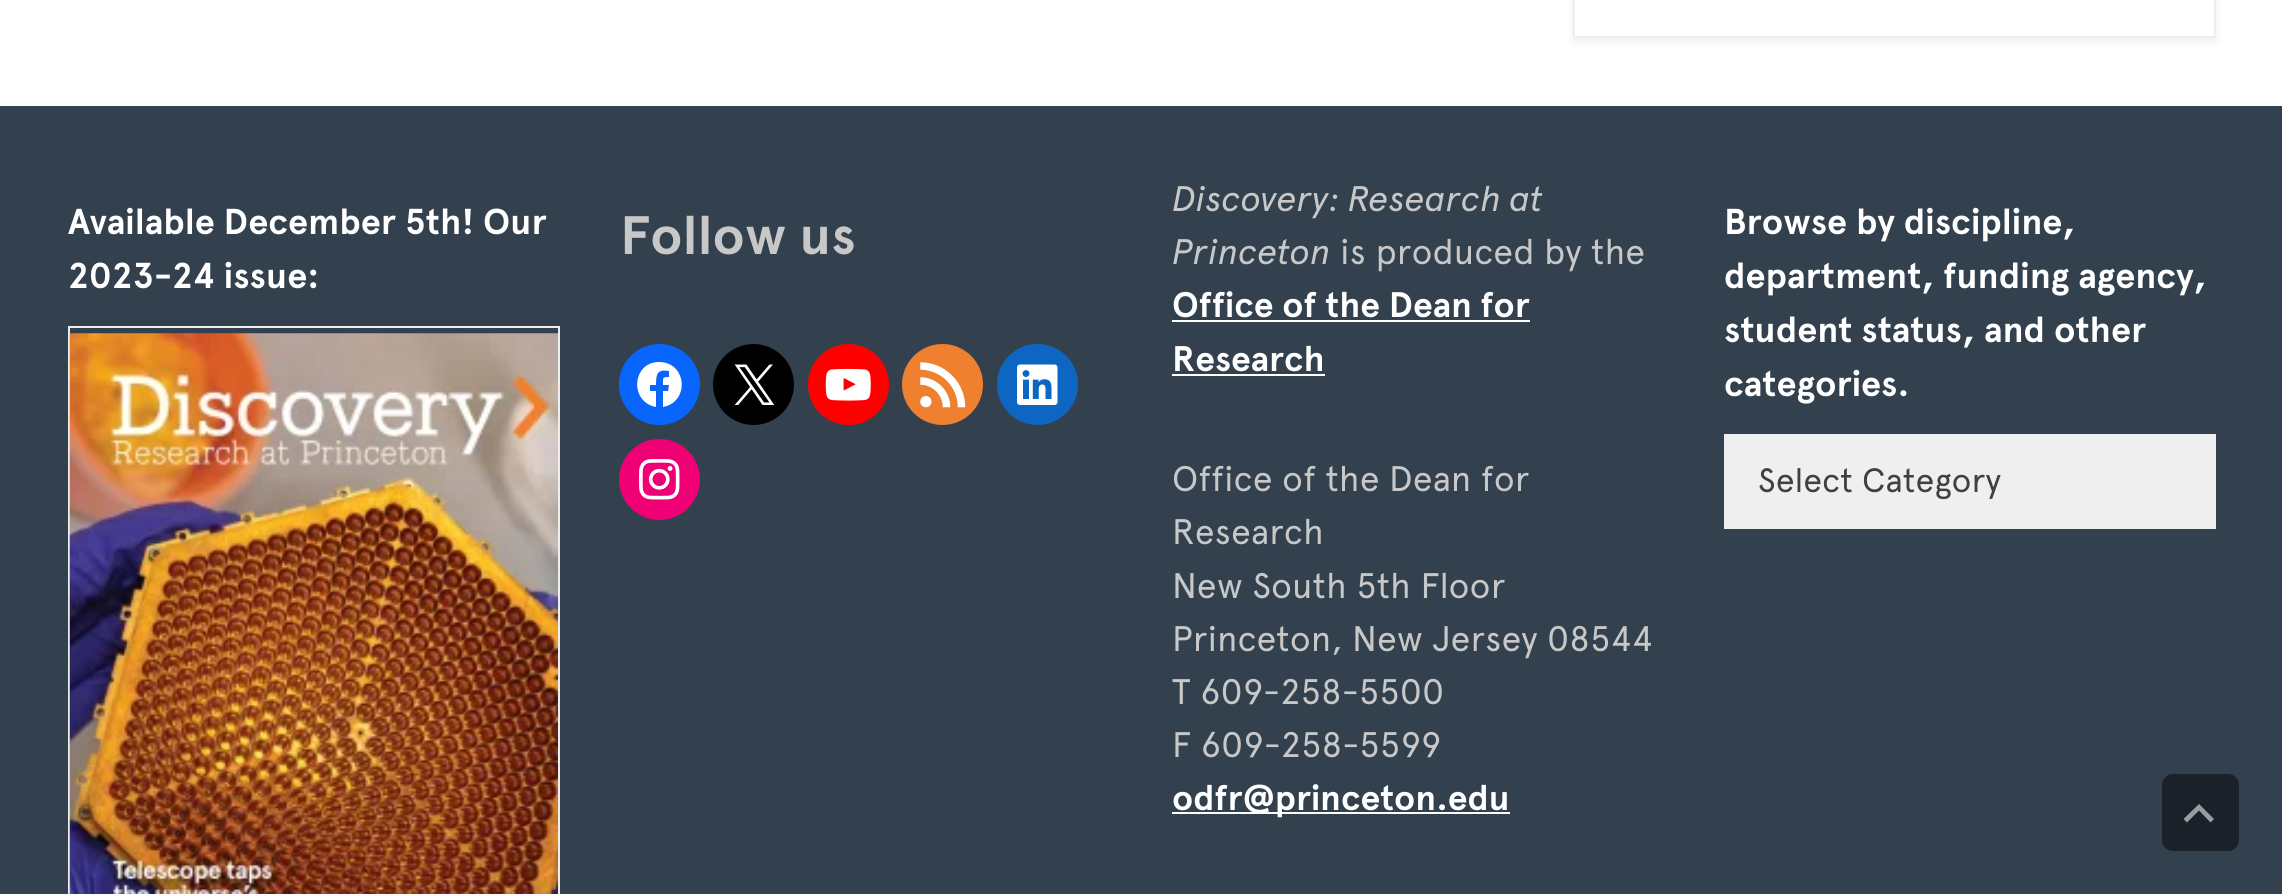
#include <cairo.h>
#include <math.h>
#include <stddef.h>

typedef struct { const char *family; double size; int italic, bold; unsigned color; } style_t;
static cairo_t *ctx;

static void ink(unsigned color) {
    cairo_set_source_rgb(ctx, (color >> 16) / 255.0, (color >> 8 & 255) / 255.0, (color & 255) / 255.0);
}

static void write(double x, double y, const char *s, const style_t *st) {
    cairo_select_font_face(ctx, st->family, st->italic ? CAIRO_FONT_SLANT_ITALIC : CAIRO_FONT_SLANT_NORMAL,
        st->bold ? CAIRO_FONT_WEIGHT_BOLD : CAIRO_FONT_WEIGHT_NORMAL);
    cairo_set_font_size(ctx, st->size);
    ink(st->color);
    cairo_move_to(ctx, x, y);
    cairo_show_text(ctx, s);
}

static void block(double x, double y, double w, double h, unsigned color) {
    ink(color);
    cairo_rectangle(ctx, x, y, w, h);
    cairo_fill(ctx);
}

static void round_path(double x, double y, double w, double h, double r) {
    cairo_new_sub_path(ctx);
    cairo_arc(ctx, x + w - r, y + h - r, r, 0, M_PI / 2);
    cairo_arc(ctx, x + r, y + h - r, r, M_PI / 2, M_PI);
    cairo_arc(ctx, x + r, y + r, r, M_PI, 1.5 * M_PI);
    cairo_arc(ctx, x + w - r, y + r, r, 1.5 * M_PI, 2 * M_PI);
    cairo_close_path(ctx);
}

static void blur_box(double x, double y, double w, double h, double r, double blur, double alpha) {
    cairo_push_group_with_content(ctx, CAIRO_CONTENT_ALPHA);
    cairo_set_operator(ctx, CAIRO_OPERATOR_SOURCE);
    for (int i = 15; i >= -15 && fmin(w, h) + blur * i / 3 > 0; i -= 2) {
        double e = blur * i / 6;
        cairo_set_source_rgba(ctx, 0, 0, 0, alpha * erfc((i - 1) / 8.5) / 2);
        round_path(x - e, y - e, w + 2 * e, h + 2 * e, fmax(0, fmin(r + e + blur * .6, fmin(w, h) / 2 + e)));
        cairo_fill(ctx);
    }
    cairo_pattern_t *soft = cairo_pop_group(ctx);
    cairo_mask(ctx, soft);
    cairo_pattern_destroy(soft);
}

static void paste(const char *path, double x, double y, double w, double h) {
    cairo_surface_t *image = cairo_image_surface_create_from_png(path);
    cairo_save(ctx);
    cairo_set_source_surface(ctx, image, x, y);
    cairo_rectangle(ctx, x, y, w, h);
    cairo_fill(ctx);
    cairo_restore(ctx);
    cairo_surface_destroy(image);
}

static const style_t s1 = {"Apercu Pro", 36, 0, 1, 0xffffff};
static const style_t s2 = {"Apercu Pro", 54, 0, 1, 0xc8c8c8};
static const style_t s3 = {"Apercu Pro", 35.5, 1, 0, 0xc8c8c8};
static const style_t s4 = {"Apercu Pro", 35.5, 0, 0, 0xc8c8c8};
static const style_t s5 = {"Apercu Pro", 35.5, 0, 1, 0xffffff};
static const style_t s6 = {"Apercu Pro", 33.75, 0, 0, 0x404040};

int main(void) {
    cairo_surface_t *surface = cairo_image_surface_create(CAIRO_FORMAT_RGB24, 2282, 894);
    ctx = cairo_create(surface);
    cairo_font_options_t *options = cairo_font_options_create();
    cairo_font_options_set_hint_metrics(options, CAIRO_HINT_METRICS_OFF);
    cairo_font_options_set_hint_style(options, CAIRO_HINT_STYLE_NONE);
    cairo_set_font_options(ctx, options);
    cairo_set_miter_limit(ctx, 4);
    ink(0xffffff);
    cairo_paint(ctx);
    cairo_save(ctx);
    cairo_set_fill_rule(ctx, CAIRO_FILL_RULE_EVEN_ODD);
    cairo_new_path(ctx);
    cairo_move_to(ctx, 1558, 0);
    cairo_line_to(ctx, 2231, 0);
    cairo_line_to(ctx, 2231, 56);
    cairo_line_to(ctx, 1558, 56);
    cairo_close_path(ctx);
    cairo_move_to(ctx, 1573, -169);
    cairo_line_to(ctx, 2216, -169);
    cairo_line_to(ctx, 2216, 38);
    cairo_line_to(ctx, 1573, 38);
    cairo_close_path(ctx);
    cairo_clip(ctx);
    ink(0x000000);
    blur_box(1573, -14, 643, 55, 0, 4.5, 0.07);
    cairo_restore(ctx);
    cairo_rectangle(ctx, 1574, -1, 641, 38);
    ink(0xeeeeee);
    cairo_stroke(ctx);
    block(0, 106, 2282, 788, 0x33414e);
    write(68, 234, "Available December 5th! Our", &s1);
    write(68, 288, "2023-24 issue:", &s1);
    cairo_rectangle(ctx, 69, 327, 490, 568);
    ink(0xeeeeee);
    cairo_stroke(ctx);
    paste("pic1.png", 69, 333, 489, 561);
    write(620, 254, "Follow us", &s2);
    ink(0x0866ff);
    cairo_new_path(ctx);
    cairo_arc(ctx, 659.5, 384.5, 40.5, 0, 2 * M_PI);
    cairo_fill(ctx);
    ink(0xffffff);
    cairo_new_path(ctx);
    cairo_move_to(ctx, 659, 362);
    cairo_curve_to(ctx, 632, 362, 629, 402, 656, 407);
    cairo_line_to(ctx, 656, 391);
    cairo_line_to(ctx, 650, 391);
    cairo_line_to(ctx, 650, 385);
    cairo_line_to(ctx, 656, 385);
    cairo_curve_to(ctx, 656, 374, 657, 369, 669, 371);
    cairo_line_to(ctx, 669, 377);
    cairo_curve_to(ctx, 662, 377, 663, 378, 663, 385);
    cairo_line_to(ctx, 669, 385);
    cairo_line_to(ctx, 668, 391);
    cairo_line_to(ctx, 663, 391);
    cairo_line_to(ctx, 663, 407);
    cairo_curve_to(ctx, 690, 402, 687, 362, 659, 362);
    cairo_close_path(ctx);
    cairo_fill(ctx);
    ink(0x000000);
    cairo_arc(ctx, 753.5, 384.5, 40.5, 0, 2 * M_PI);
    cairo_fill(ctx);
    paste("pic2.png", 734, 364, 41, 41);
    ink(0xff0000);
    cairo_arc(ctx, 848.5, 384.5, 40.5, 0, 2 * M_PI);
    cairo_fill(ctx);
    paste("pic3.png", 825, 368, 46, 33);
    ink(0xee802f);
    cairo_arc(ctx, 942.5, 384.5, 40.5, 0, 2 * M_PI);
    cairo_fill(ctx);
    paste("pic4.png", 920, 362, 46, 46);
    ink(0x0d66c2);
    cairo_arc(ctx, 1037.5, 384.5, 40.5, 0, 2 * M_PI);
    cairo_fill(ctx);
    paste("pic5.png", 1017, 364, 41, 41);
    ink(0xf00075);
    cairo_arc(ctx, 659.5, 479.5, 40.5, 0, 2 * M_PI);
    cairo_fill(ctx);
    paste("pic6.png", 639, 459, 41, 41);
    write(1172, 211, "Discovery: Research at", &s3);
    write(1172, 264, "Princeton", &s3);
    write(1340, 264, "is produced by the", &s4);
    write(1172, 317, "Office of the Dean for", &s5);
    block(1172, 320, 358, 2, 0xffffff);
    write(1172, 371, "Research", &s5);
    block(1172, 374, 153, 2, 0xffffff);
    write(1172, 491, "Office of the Dean for", &s4);
    write(1172, 544, "Research", &s4);
    write(1172, 598, "New South 5th Floor", &s4);
    write(1172, 651, "Princeton, New Jersey 08544", &s4);
    write(1172, 704, "T 609-258-5500", &s4);
    write(1172, 757, "F 609-258-5599", &s4);
    block(1172, 812, 338, 2, 0xffffff);
    write(1172, 810, "odfr@princeton.edu", &s5);
    write(1724, 234, "Browse by discipline,", &s1);
    write(1724, 288, "department, funding agency,", &s1);
    write(1724, 342, "student status, and other", &s1);
    write(1724, 396, "categories.", &s1);
    block(1724, 434, 492, 95, 0xefefef);
    write(1758, 492, "Select Category", &s6);
    ink(0x1a2128);
    round_path(2162, 774, 77, 77, 11);
    cairo_fill(ctx);
    ink(0x969da4);
    cairo_new_path(ctx);
    cairo_move_to(ctx, 2210.5, 822.5);
    cairo_line_to(ctx, 2199, 810.5);
    cairo_line_to(ctx, 2187, 822.5);
    cairo_line_to(ctx, 2183.5, 819);
    cairo_line_to(ctx, 2199, 804);
    cairo_line_to(ctx, 2214, 819);
    cairo_close_path(ctx);
    cairo_fill(ctx);
    cairo_surface_write_to_png(surface, "screenshot.png");
    cairo_font_options_destroy(options);
    cairo_destroy(ctx);
    cairo_surface_destroy(surface);
    return 0;
}
